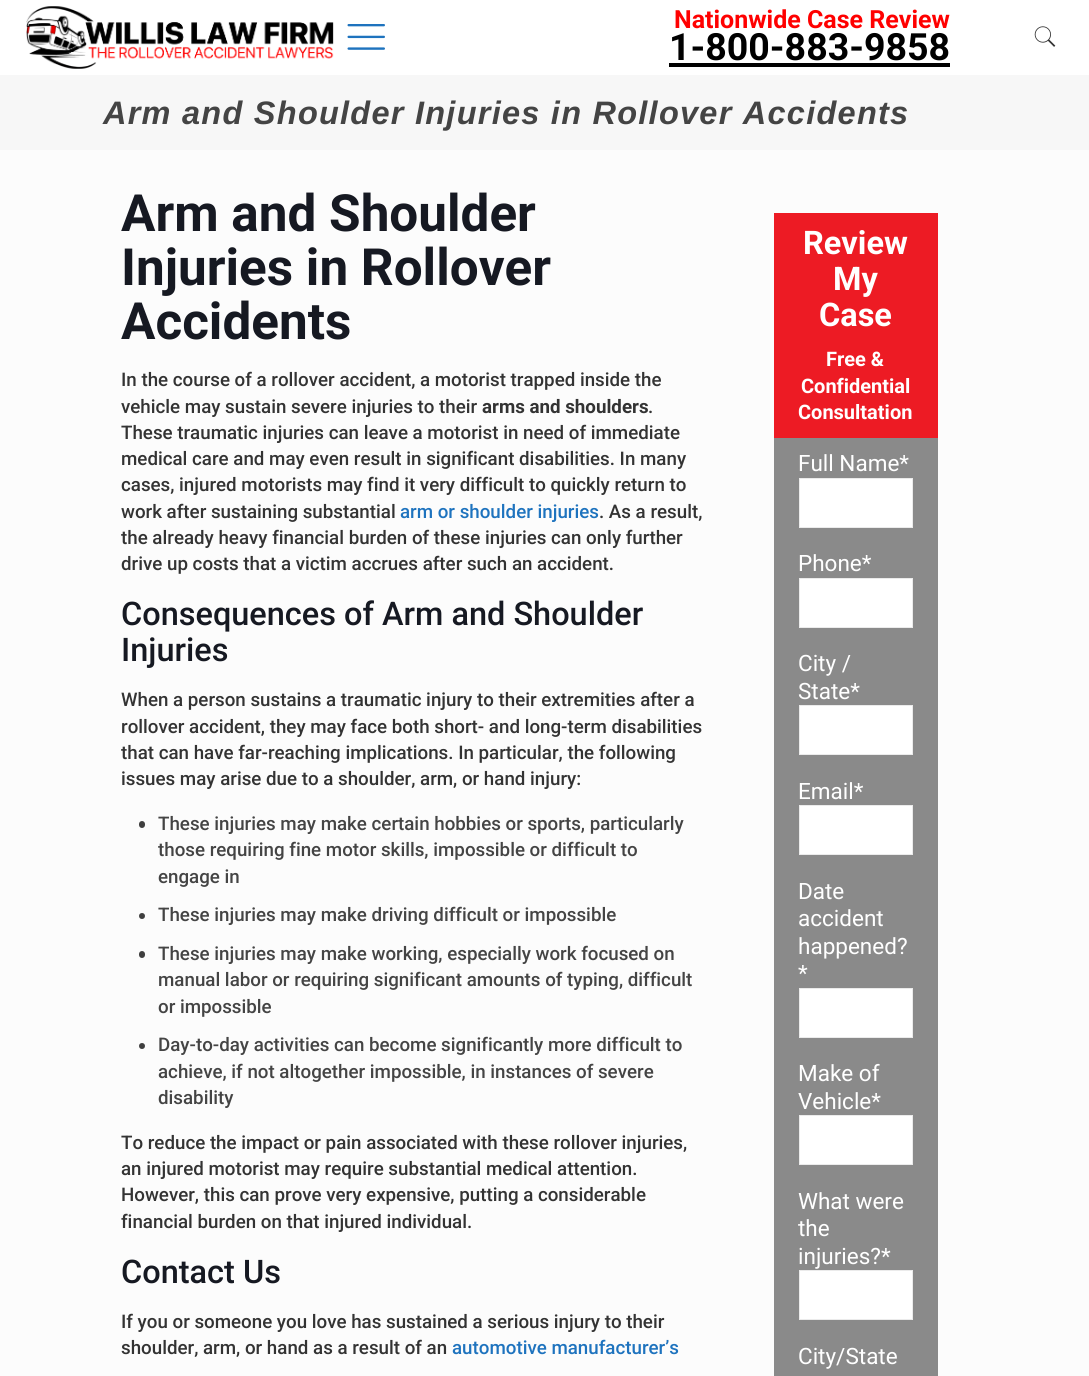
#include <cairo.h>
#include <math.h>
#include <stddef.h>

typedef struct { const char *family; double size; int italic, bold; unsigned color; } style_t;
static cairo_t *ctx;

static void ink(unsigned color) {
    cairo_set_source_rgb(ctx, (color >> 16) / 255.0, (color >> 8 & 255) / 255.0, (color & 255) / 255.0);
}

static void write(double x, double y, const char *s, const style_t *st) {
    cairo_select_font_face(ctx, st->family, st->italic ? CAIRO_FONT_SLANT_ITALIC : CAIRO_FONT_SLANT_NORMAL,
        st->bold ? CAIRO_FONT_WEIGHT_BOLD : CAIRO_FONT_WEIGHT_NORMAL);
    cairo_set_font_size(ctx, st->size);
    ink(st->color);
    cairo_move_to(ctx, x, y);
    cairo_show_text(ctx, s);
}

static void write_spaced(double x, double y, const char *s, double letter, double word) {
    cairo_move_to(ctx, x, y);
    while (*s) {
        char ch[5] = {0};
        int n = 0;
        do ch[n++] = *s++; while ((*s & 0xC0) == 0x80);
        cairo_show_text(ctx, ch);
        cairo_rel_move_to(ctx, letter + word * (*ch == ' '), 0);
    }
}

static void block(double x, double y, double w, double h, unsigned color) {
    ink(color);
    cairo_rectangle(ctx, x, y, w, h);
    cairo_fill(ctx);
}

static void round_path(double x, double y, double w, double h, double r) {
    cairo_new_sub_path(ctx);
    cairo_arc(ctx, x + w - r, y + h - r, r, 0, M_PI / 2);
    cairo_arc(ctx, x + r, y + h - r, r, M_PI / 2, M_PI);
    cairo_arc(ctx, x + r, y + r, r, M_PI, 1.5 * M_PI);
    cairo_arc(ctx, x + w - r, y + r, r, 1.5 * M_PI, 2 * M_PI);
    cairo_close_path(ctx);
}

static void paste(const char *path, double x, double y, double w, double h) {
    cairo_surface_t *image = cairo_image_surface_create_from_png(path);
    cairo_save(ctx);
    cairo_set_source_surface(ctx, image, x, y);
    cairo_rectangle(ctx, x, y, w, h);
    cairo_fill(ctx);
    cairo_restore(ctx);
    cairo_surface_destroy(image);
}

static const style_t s1 = {"Roboto", 25, 0, 1, 0xff0000};
static const style_t s2 = {"Roboto", 37.5, 0, 1, 0x000000};
static const style_t s3 = {"Roboto", 51.25, 0, 1, 0x161922};
static const style_t s4 = {"Roboto Medium", 18.75, 0, 0, 0x333333};
static const style_t s5 = {"Roboto", 18.75, 0, 1, 0x333333};
static const style_t s6 = {"Roboto Medium", 18.75, 0, 0, 0x1e73be};
static const style_t s7 = {"Roboto Medium", 32.5, 0, 0, 0x161922};
static const style_t s8 = {"Roboto Medium", 18.75, 0, 0, 0x444444};
static const style_t s9 = {"Roboto", 32.5, 0, 1, 0xffffff};
static const style_t s10 = {"Roboto", 20, 0, 1, 0xffffff};
static const style_t s11 = {"Roboto", 22.5, 0, 0, 0xffffff};

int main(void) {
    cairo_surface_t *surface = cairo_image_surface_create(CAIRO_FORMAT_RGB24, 1089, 1376);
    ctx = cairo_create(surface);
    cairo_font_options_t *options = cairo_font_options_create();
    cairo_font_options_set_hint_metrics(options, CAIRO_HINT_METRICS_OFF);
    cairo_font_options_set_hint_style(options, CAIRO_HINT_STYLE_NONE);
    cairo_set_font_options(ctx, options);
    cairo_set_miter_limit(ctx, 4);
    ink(0xfcfcfc);
    cairo_paint(ctx);
    block(0, 0, 1089, 75, 0xffffff);
    paste("pic1.png", 26, 6, 308, 63);
    paste("pic2.png", 347, 24, 38, 26);
    write(674, 28, "Nationwide Case Review", &s1);
    write(669, 60, "1-800-883-9858", &s2);
    block(669, 63, 281, 4, 0x000000);
    paste("pic3.png", 1034, 26, 22, 21);
    block(0, 75, 1089, 75, 0xf7f7f7);
    cairo_select_font_face(ctx, "Liberation Sans", CAIRO_FONT_SLANT_ITALIC, CAIRO_FONT_WEIGHT_BOLD);
    cairo_set_font_size(ctx, 32.5);
    ink(0x444444);
    write_spaced(103, 124, "Arm and Shoulder Injuries in Rollover Accidents", 1.25, 0);
    write(121, 231, "Arm and Shoulder", &s3);
    write(121, 285, "Injuries in Rollover", &s3);
    write(121, 339, "Accidents", &s3);
    write(121, 386, "In the course of a rollover accident, a motorist trapped inside the", &s4);
    write(121, 413, "vehicle may sustain severe injuries to their", &s4);
    write(482, 413, "arms and shoulders", &s5);
    write(648, 413, ".", &s4);
    write(121, 439, "These traumatic injuries can leave a motorist in need of immediate", &s4);
    write(121, 465, "medical care and may even result in significant disabilities. In many", &s4);
    write(121, 491, "cases, injured motorists may find it very difficult to quickly return to", &s4);
    write(121, 518, "work after sustaining substantial", &s4);
    write(400, 518, "arm or shoulder injuries", &s6);
    write(599, 518, ". As a result,", &s4);
    write(121, 544, "the already heavy financial burden of these injuries can only further", &s4);
    write(121, 570, "drive up costs that a victim accrues after such an accident.", &s4);
    write(121, 625, "Consequences of Arm and Shoulder", &s7);
    write(121, 661, "Injuries", &s7);
    write(121, 706, "When a person sustains a traumatic injury to their extremities after a", &s4);
    write(121, 733, "rollover accident, they may face both short- and long-term disabilities", &s4);
    write(121, 759, "that can have far-reaching implications. In particular, the following", &s4);
    write(121, 785, "issues may arise due to a shoulder, arm, or hand injury:", &s4);
    ink(0x3f3f3f);
    round_path(139, 821, 6, 7, 3);
    cairo_fill(ctx);
    write(158, 830, "These injuries may make certain hobbies or sports, particularly", &s8);
    write(158, 856, "those requiring fine motor skills, impossible or difficult to", &s8);
    write(158, 883, "engage in", &s8);
    ink(0x3f3f3f);
    cairo_new_path(ctx);
    cairo_arc(ctx, 142, 916, 3, 0, 2 * M_PI);
    cairo_fill(ctx);
    write(158, 921, "These injuries may make driving difficult or impossible", &s8);
    ink(0x3f3f3f);
    round_path(139, 951, 6, 7, 3);
    cairo_fill(ctx);
    write(158, 960, "These injuries may make working, especially work focused on", &s8);
    write(158, 986, "manual labor or requiring significant amounts of typing, difficult", &s8);
    write(158, 1013, "or impossible", &s8);
    ink(0x3f3f3f);
    cairo_new_path(ctx);
    cairo_arc(ctx, 142, 1046, 3, 0, 2 * M_PI);
    cairo_fill(ctx);
    write(158, 1051, "Day-to-day activities can become significantly more difficult to", &s8);
    write(158, 1078, "achieve, if not altogether impossible, in instances of severe", &s8);
    write(158, 1104, "disability", &s8);
    write(121, 1149, "To reduce the impact or pain associated with these rollover injuries,", &s4);
    write(121, 1175, "an injured motorist may require substantial medical attention.", &s4);
    write(121, 1201, "However, this can prove very expensive, putting a considerable", &s4);
    write(121, 1228, "financial burden on that injured individual.", &s4);
    write(121, 1283, "Contact Us", &s7);
    write(121, 1328, "If you or someone you love has sustained a serious injury to their", &s4);
    write(121, 1354, "shoulder, arm, or hand as a result of an", &s4);
    write(452, 1354, "automotive manufacturer’s", &s6);
    block(774, 213, 164, 225, 0xed1b24);
    write(803, 254, "Review", &s9);
    write(833, 290, "My", &s9);
    write(819, 326, "Case", &s9);
    write(826, 366, "Free &", &s10);
    write(801, 393, "Confidential", &s10);
    write(798, 419, "Consultation", &s10);
    block(774, 438, 164, 938, 0x8a8a8a);
    write(798, 471, "Full Name*", &s11);
    cairo_rectangle(ctx, 799.5, 478.5, 113, 49);
    cairo_fill_preserve(ctx);
    ink(0xebebeb);
    cairo_set_line_width(ctx, 1);
    cairo_stroke(ctx);
    write(798, 571, "Phone*", &s11);
    cairo_rectangle(ctx, 799.5, 578.5, 113, 49);
    cairo_fill_preserve(ctx);
    ink(0xebebeb);
    cairo_stroke(ctx);
    write(798, 671, "City /", &s11);
    write(798, 699, "State*", &s11);
    cairo_rectangle(ctx, 799.5, 705.5, 113, 49);
    cairo_fill_preserve(ctx);
    ink(0xebebeb);
    cairo_stroke(ctx);
    write(798, 799, "Email*", &s11);
    cairo_rectangle(ctx, 799.5, 805.5, 113, 49);
    cairo_fill_preserve(ctx);
    ink(0xebebeb);
    cairo_stroke(ctx);
    write(798, 899, "Date", &s11);
    write(798, 926, "accident", &s11);
    write(798, 954, "happened?", &s11);
    write(798, 981, "*", &s11);
    cairo_rectangle(ctx, 799.5, 988.5, 113, 49);
    cairo_fill_preserve(ctx);
    ink(0xebebeb);
    cairo_stroke(ctx);
    write(798, 1081, "Make of", &s11);
    write(798, 1109, "Vehicle*", &s11);
    cairo_rectangle(ctx, 799.5, 1115.5, 113, 49);
    cairo_fill_preserve(ctx);
    ink(0xebebeb);
    cairo_stroke(ctx);
    write(798, 1209, "What were", &s11);
    write(798, 1236, "the", &s11);
    write(798, 1264, "injuries?*", &s11);
    cairo_rectangle(ctx, 799.5, 1270.5, 113, 49);
    cairo_fill_preserve(ctx);
    ink(0xebebeb);
    cairo_stroke(ctx);
    write(798, 1364, "City/State", &s11);
    cairo_surface_write_to_png(surface, "screenshot.png");
    cairo_font_options_destroy(options);
    cairo_destroy(ctx);
    cairo_surface_destroy(surface);
    return 0;
}
